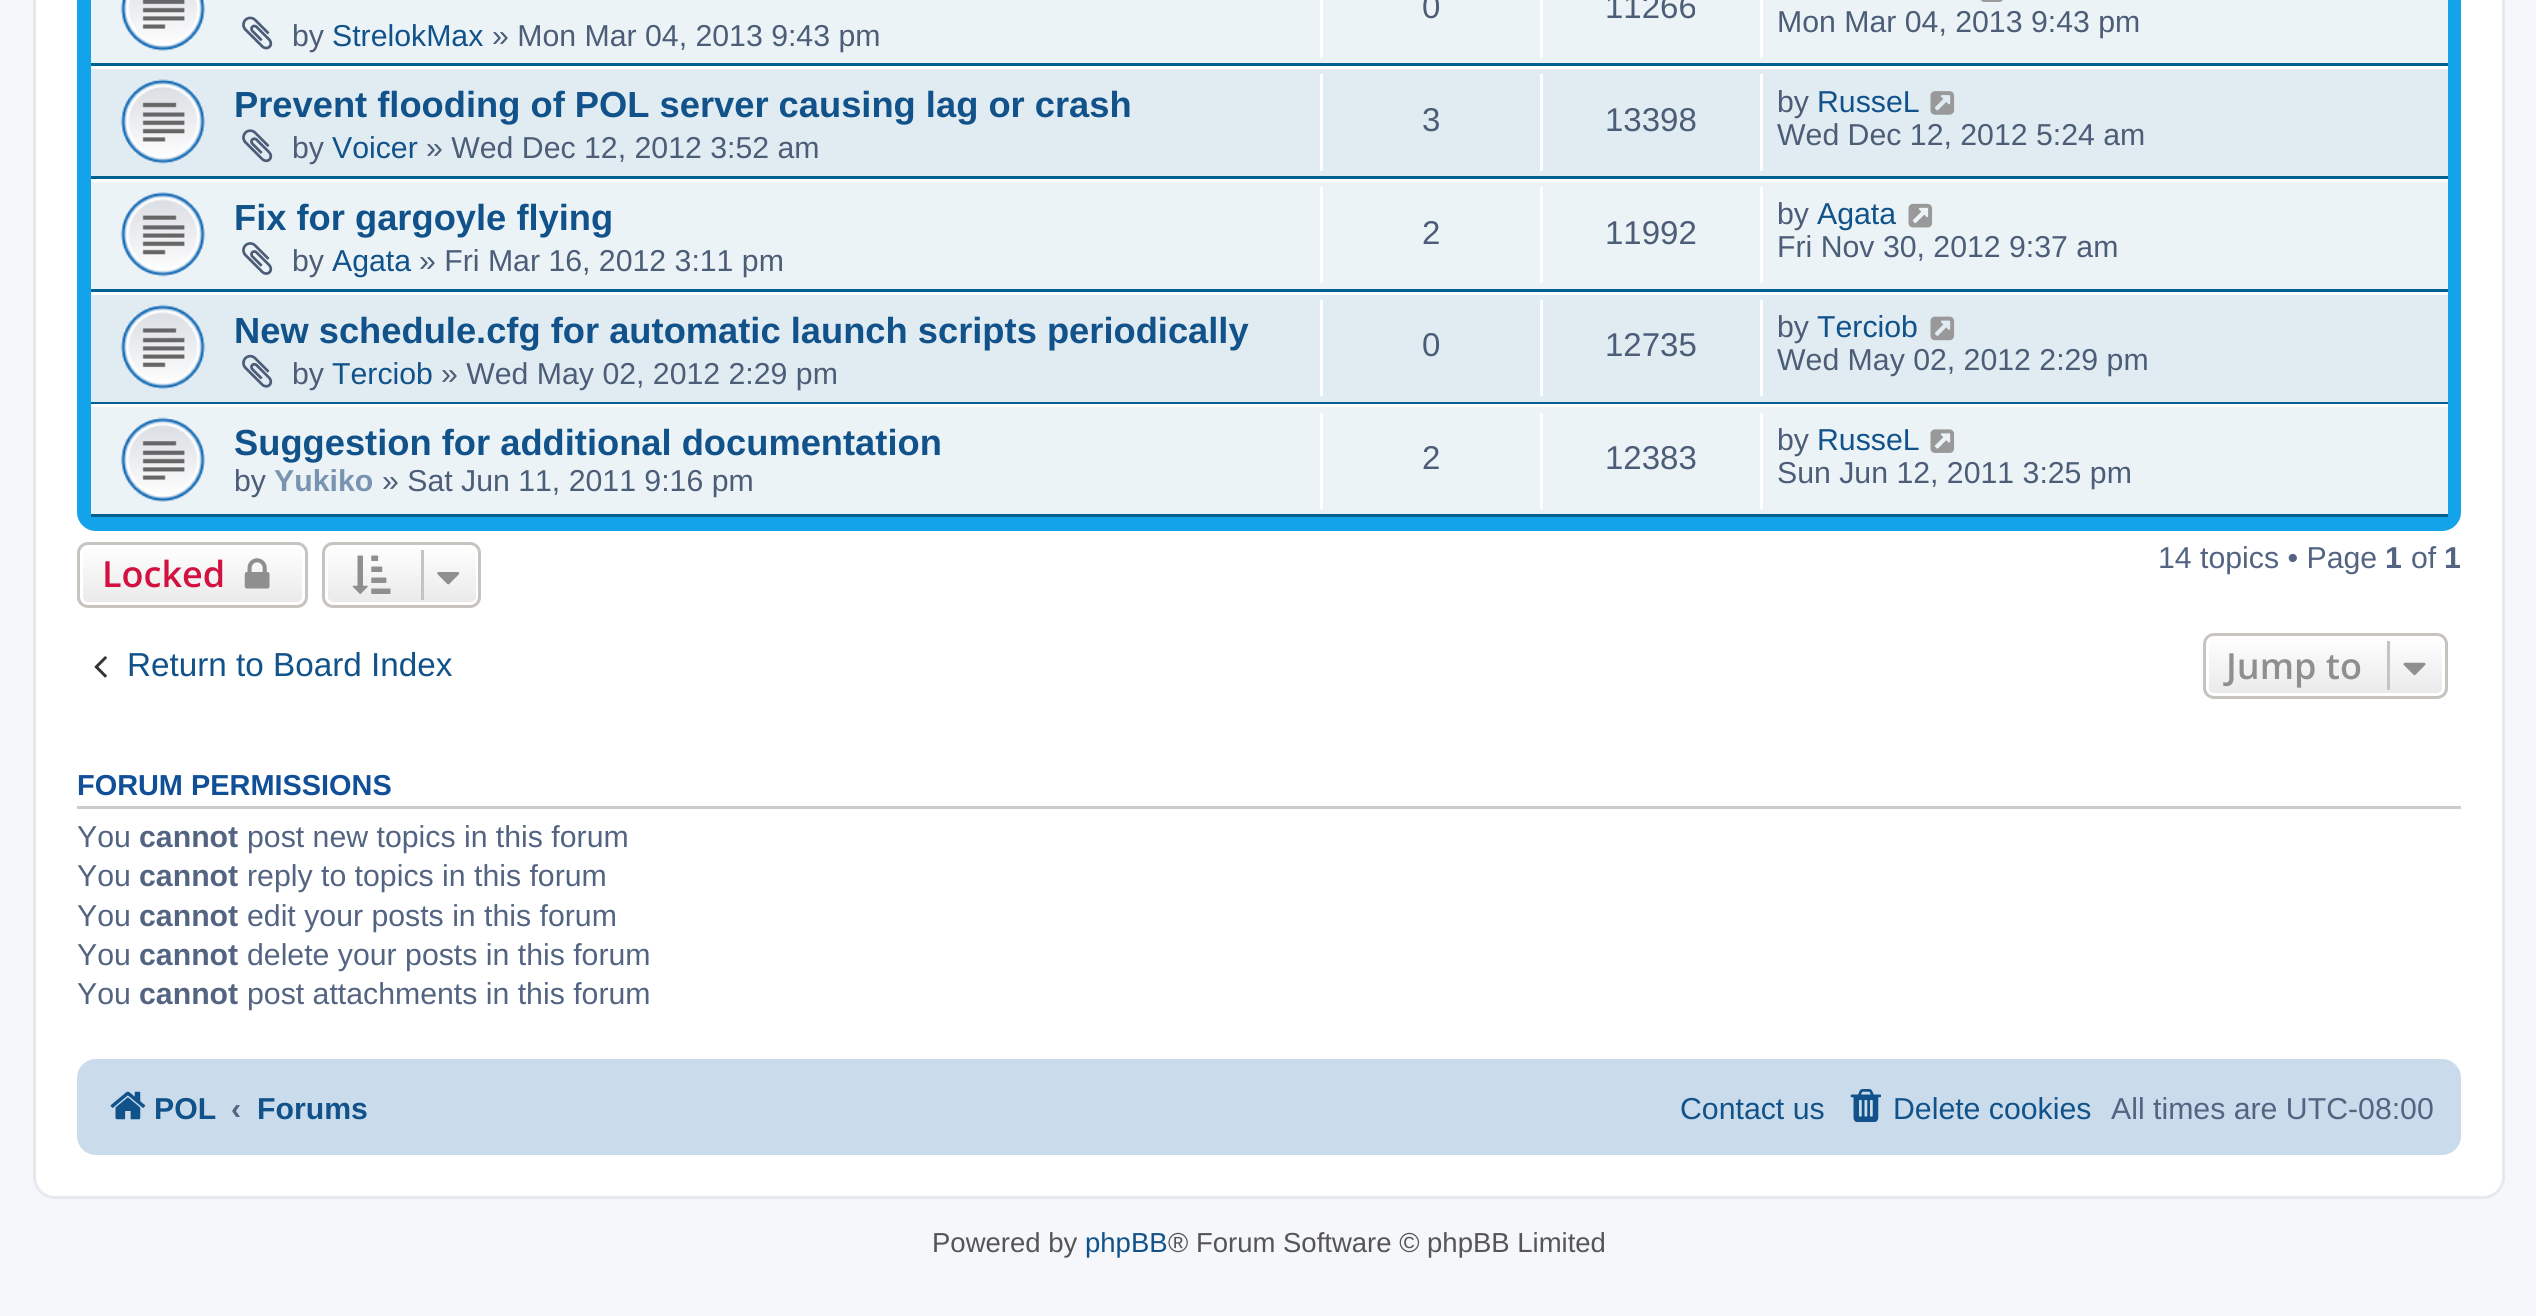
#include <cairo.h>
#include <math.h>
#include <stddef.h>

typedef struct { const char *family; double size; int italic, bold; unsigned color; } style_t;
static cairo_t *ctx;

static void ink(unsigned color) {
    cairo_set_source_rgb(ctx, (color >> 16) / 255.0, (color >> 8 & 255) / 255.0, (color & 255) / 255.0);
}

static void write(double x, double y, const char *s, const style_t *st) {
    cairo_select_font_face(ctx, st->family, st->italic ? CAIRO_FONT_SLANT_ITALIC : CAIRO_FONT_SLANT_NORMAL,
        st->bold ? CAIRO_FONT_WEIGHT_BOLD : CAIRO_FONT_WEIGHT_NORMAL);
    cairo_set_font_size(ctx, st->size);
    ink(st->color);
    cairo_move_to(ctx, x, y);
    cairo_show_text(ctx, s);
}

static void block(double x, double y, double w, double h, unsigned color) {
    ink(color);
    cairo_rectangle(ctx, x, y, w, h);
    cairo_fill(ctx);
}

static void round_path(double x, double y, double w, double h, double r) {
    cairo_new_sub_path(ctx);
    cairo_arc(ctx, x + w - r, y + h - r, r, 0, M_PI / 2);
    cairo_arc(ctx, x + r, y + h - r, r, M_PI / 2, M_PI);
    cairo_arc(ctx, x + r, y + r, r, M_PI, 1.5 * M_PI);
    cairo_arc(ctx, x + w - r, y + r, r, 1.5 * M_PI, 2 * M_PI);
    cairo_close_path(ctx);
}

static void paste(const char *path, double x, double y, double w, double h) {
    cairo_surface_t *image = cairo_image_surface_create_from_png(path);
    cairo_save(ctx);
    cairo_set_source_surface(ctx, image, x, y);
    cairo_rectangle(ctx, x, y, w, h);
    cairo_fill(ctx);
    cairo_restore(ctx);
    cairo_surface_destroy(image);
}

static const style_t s1 = {"Liberation Sans", 30.25, 0, 0, 0x4c5d77};
static const style_t s2 = {"Liberation Sans", 30.25, 0, 0, 0x105289};
static const style_t s3 = {"Liberation Sans", 33, 0, 0, 0x4c5d77};
static const style_t s4 = {"Liberation Sans", 36.3, 0, 1, 0x105289};
static const style_t s5 = {"Liberation Sans", 30.25, 0, 1, 0x7994b1};
static const style_t s6 = {"Open Sans SemiBold", 36, 0, 0, 0xd31141};
static const style_t s7 = {"Liberation Sans", 30.25, 0, 0, 0x536482};
static const style_t s8 = {"Liberation Sans", 30.25, 0, 1, 0x536482};
static const style_t s9 = {"Liberation Sans", 33.25, 0, 0, 0x105289};
static const style_t s10 = {"Open Sans SemiBold", 36, 0, 0, 0x8f8f8f};
static const style_t s11 = {"Liberation Sans", 28.9, 0, 1, 0x115098};
static const style_t s12 = {"Liberation Sans", 30.25, 0, 1, 0x105289};
static const style_t s13 = {"Liberation Sans", 27.5, 0, 0, 0x555555};
static const style_t s14 = {"Liberation Sans", 27.5, 0, 0, 0x105289};

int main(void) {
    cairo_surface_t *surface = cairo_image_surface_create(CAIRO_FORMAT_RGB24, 2536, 1316);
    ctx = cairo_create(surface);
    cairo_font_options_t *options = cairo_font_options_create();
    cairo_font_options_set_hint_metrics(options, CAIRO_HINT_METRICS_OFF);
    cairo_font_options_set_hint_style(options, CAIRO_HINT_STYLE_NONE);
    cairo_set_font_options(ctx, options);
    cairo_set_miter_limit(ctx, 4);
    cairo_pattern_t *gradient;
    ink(0xf5f7fa);
    cairo_paint(ctx);
    ink(0xffffff);
    round_path(34.5, -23.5, 2469, 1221, 20.5);
    cairo_fill_preserve(ctx);
    ink(0xe6e9ed);
    cairo_set_line_width(ctx, 3);
    cairo_stroke(ctx);
    gradient = cairo_pattern_create_linear(1269, -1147, 1269, 531);
    cairo_pattern_add_color_stop_rgba(gradient, 0, 0.416, 0.808, 1, 1);
    cairo_pattern_add_color_stop_rgba(gradient, 0, 0, 0.463, 0.694, 1);
    cairo_pattern_add_color_stop_rgba(gradient, 0.15, 0.071, 0.639, 0.922, 1);
    cairo_pattern_add_color_stop_rgba(gradient, 1, 0.071, 0.639, 0.922, 1);
    cairo_set_source(ctx, gradient);
    cairo_pattern_destroy(gradient);
    round_path(77, -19, 2384, 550, 19);
    cairo_fill(ctx);
    block(91, 0, 2357, 63, 0xecf3f7);
    block(91, 63, 2357, 3, 0x00608f);
    paste("pic1.png", 120, 0, 86, 51);
    paste("pic2.png", 242, 16, 31, 34);
    write(292, 46, "by", &s1);
    write(332, 46, "StrelokMax", &s2);
    write(492, 46, "» Mon Mar 04, 2013 9:43 pm", &s1);
    block(1320, 0, 3, 58, 0xffffff);
    write(1422, 18, "0", &s3);
    block(1540, 0, 3, 58, 0xffffff);
    write(1605, 18, "11266", &s3);
    block(1760, 0, 3, 58, 0xffffff);
    paste("pic3.png", 1981, 0, 22, 2);
    write(1777, 32, "Mon Mar 04, 2013 9:43 pm", &s1);
    block(91, 69, 2357, 107, 0xe1ebf2);
    block(91, 66, 2357, 3, 0xffffff);
    block(91, 176, 2357, 3, 0x00608f);
    paste("pic4.png", 120, 79, 86, 85);
    write(234, 117, "Prevent flooding of POL server causing lag or crash", &s4);
    paste("pic5.png", 242, 129, 31, 34);
    write(292, 158, "by", &s1);
    write(332, 158, "Voicer", &s2);
    write(426, 158, "» Wed Dec 12, 2012 3:52 am", &s1);
    block(1320, 74, 3, 97, 0xffffff);
    write(1422, 131, "3", &s3);
    block(1540, 74, 3, 97, 0xffffff);
    write(1605, 131, "13398", &s3);
    block(1760, 74, 3, 97, 0xffffff);
    write(1777, 112, "by", &s1);
    write(1817, 112, "RusseL", &s2);
    paste("pic6.png", 1930, 91, 25, 24);
    write(1777, 145, "Wed Dec 12, 2012 5:24 am", &s1);
    block(91, 182, 2357, 107, 0xecf3f7);
    block(91, 179, 2357, 3, 0xffffff);
    block(91, 289, 2357, 3, 0x00608f);
    paste("pic7.png", 120, 192, 86, 85);
    write(234, 230, "Fix for gargoyle flying", &s4);
    paste("pic8.png", 242, 242, 31, 33);
    write(292, 271, "by", &s1);
    write(332, 271, "Agata", &s2);
    write(419, 271, "» Fri Mar 16, 2012 3:11 pm", &s1);
    block(1320, 187, 3, 96, 0xffffff);
    write(1422, 244, "2", &s3);
    block(1540, 187, 3, 96, 0xffffff);
    write(1605, 244, "11992", &s3);
    block(1760, 187, 3, 96, 0xffffff);
    write(1777, 224, "by", &s1);
    write(1817, 224, "Agata", &s2);
    paste("pic9.png", 1908, 203, 25, 25);
    write(1777, 257, "Fri Nov 30, 2012 9:37 am", &s1);
    block(91, 295, 2357, 107, 0xe1ebf2);
    block(91, 292, 2357, 3, 0xffffff);
    block(91, 402, 2357, 2, 0x00608f);
    paste("pic10.png", 120, 304, 86, 86);
    write(234, 343, "New schedule.cfg for automatic launch scripts periodically", &s4);
    paste("pic11.png", 242, 354, 31, 34);
    write(292, 384, "by", &s1);
    write(332, 384, "Terciob", &s2);
    write(441, 384, "» Wed May 02, 2012 2:29 pm", &s1);
    block(1320, 300, 3, 96, 0xffffff);
    write(1422, 356, "0", &s3);
    block(1540, 300, 3, 96, 0xffffff);
    write(1605, 356, "12735", &s3);
    block(1760, 300, 3, 96, 0xffffff);
    write(1777, 337, "by", &s1);
    write(1817, 337, "Terciob", &s2);
    paste("pic12.png", 1930, 316, 25, 25);
    write(1777, 370, "Wed May 02, 2012 2:29 pm", &s1);
    block(91, 407, 2357, 107, 0xecf3f7);
    block(91, 404, 2357, 3, 0xffffff);
    block(91, 514, 2357, 3, 0x00608f);
    paste("pic13.png", 120, 417, 86, 85);
    write(234, 455, "Suggestion for additional documentation", &s4);
    write(234, 491, "by", &s1);
    write(274, 491, "Yukiko", &s5);
    write(382, 491, "» Sat Jun 11, 2011 9:16 pm", &s1);
    block(1320, 413, 3, 96, 0xffffff);
    write(1422, 469, "2", &s3);
    block(1540, 413, 3, 96, 0xffffff);
    write(1605, 469, "12383", &s3);
    block(1760, 413, 3, 96, 0xffffff);
    write(1777, 450, "by", &s1);
    write(1817, 450, "RusseL", &s2);
    paste("pic14.png", 1930, 429, 25, 24);
    write(1777, 483, "Sun Jun 12, 2011 3:25 pm", &s1);
    cairo_save(ctx);
    round_path(77, 542, 231, 66, 11);
    cairo_clip(ctx);
    gradient = cairo_pattern_create_linear(193, 545, 193, 605);
    cairo_pattern_add_color_stop_rgba(gradient, 0, 1, 1, 1, 1);
    cairo_pattern_add_color_stop_rgba(gradient, 1, 0.914, 0.914, 0.914, 1);
    cairo_set_source(ctx, gradient);
    cairo_pattern_destroy(gradient);
    cairo_rectangle(ctx, 77, 545, 231, 60);
    cairo_fill(ctx);
    cairo_restore(ctx);
    round_path(81.5, 546.5, 222, 57, 6.5);
    ink(0xffffff);
    cairo_stroke(ctx);
    round_path(78.5, 543.5, 228, 63, 9.5);
    ink(0xc7c3bf);
    cairo_stroke(ctx);
    write(102, 587, "Locked", &s6);
    paste("pic15.png", 244, 558, 26, 31);
    cairo_save(ctx);
    round_path(322, 542, 159, 66, 11);
    cairo_clip(ctx);
    gradient = cairo_pattern_create_linear(402, 545, 402, 605);
    cairo_pattern_add_color_stop_rgba(gradient, 0, 1, 1, 1, 1);
    cairo_pattern_add_color_stop_rgba(gradient, 1, 0.914, 0.914, 0.914, 1);
    cairo_set_source(ctx, gradient);
    cairo_pattern_destroy(gradient);
    cairo_rectangle(ctx, 322, 545, 159, 60);
    cairo_fill(ctx);
    cairo_restore(ctx);
    round_path(326.5, 546.5, 151, 57, 6.5);
    ink(0xffffff);
    cairo_stroke(ctx);
    round_path(323.5, 543.5, 156, 63, 9.5);
    ink(0xc7c3bf);
    cairo_stroke(ctx);
    paste("pic16.png", 352, 555, 39, 39);
    block(421, 550, 3, 50, 0xc7c3bf);
    paste("pic17.png", 437, 572, 23, 13);
    write(2158, 568, "14 topics • Page", &s7);
    write(2385, 568, "1", &s8);
    write(2411, 568, "of", &s7);
    write(2444, 568, "1", &s8);
    paste("pic18.png", 94, 656, 13, 22);
    write(127, 676, "Return to Board Index", &s9);
    cairo_save(ctx);
    round_path(2203, 633, 245, 66, 11);
    cairo_clip(ctx);
    gradient = cairo_pattern_create_linear(2325, 635, 2325, 696);
    cairo_pattern_add_color_stop_rgba(gradient, 0, 1, 1, 1, 1);
    cairo_pattern_add_color_stop_rgba(gradient, 1, 0.914, 0.914, 0.914, 1);
    cairo_set_source(ctx, gradient);
    cairo_pattern_destroy(gradient);
    cairo_rectangle(ctx, 2203, 635, 245, 61);
    cairo_fill(ctx);
    cairo_restore(ctx);
    round_path(2207.5, 636.5, 236, 58, 6.5);
    ink(0xffffff);
    cairo_stroke(ctx);
    round_path(2204.5, 634.5, 242, 63, 9.5);
    ink(0xc7c3bf);
    cairo_stroke(ctx);
    write(2226, 679, "Jump to", &s10);
    block(2387, 641, 3, 49, 0xc7c3bf);
    paste("pic19.png", 2403, 662, 23, 14);
    block(77, 806, 2384, 3, 0xcccccc);
    write(77, 795, "FORUM PERMISSIONS", &s11);
    write(77, 847, "You", &s7);
    write(139, 847, "cannot", &s8);
    write(247, 847, "post new topics in this forum", &s7);
    write(77, 886, "You", &s7);
    write(139, 886, "cannot", &s8);
    write(247, 886, "reply to topics in this forum", &s7);
    write(77, 926, "You", &s7);
    write(139, 926, "cannot", &s8);
    write(247, 926, "edit your posts in this forum", &s7);
    write(77, 965, "You", &s7);
    write(139, 965, "cannot", &s8);
    write(247, 965, "delete your posts in this forum", &s7);
    write(77, 1004, "You", &s7);
    write(139, 1004, "cannot", &s8);
    write(247, 1004, "post attachments in this forum", &s7);
    ink(0xcadceb);
    round_path(77, 1059, 2384, 96, 19);
    cairo_fill(ctx);
    paste("pic20.png", 110, 1091, 36, 29);
    write(154, 1119, "POL", &s12);
    write(231, 1119, "‹", &s8);
    write(257, 1119, "Forums", &s12);
    write(1680, 1119, "Contact us", &s2);
    paste("pic21.png", 1850, 1089, 31, 33);
    write(1893, 1119, "Delete cookies", &s2);
    write(2111, 1119, "All times are UTC-08:00", &s7);
    write(932, 1252, "Powered by", &s13);
    write(1085, 1252, "phpBB", &s14);
    write(1168, 1252, "® Forum Software © phpBB Limited", &s13);
    cairo_surface_write_to_png(surface, "screenshot.png");
    cairo_font_options_destroy(options);
    cairo_destroy(ctx);
    cairo_surface_destroy(surface);
    return 0;
}
